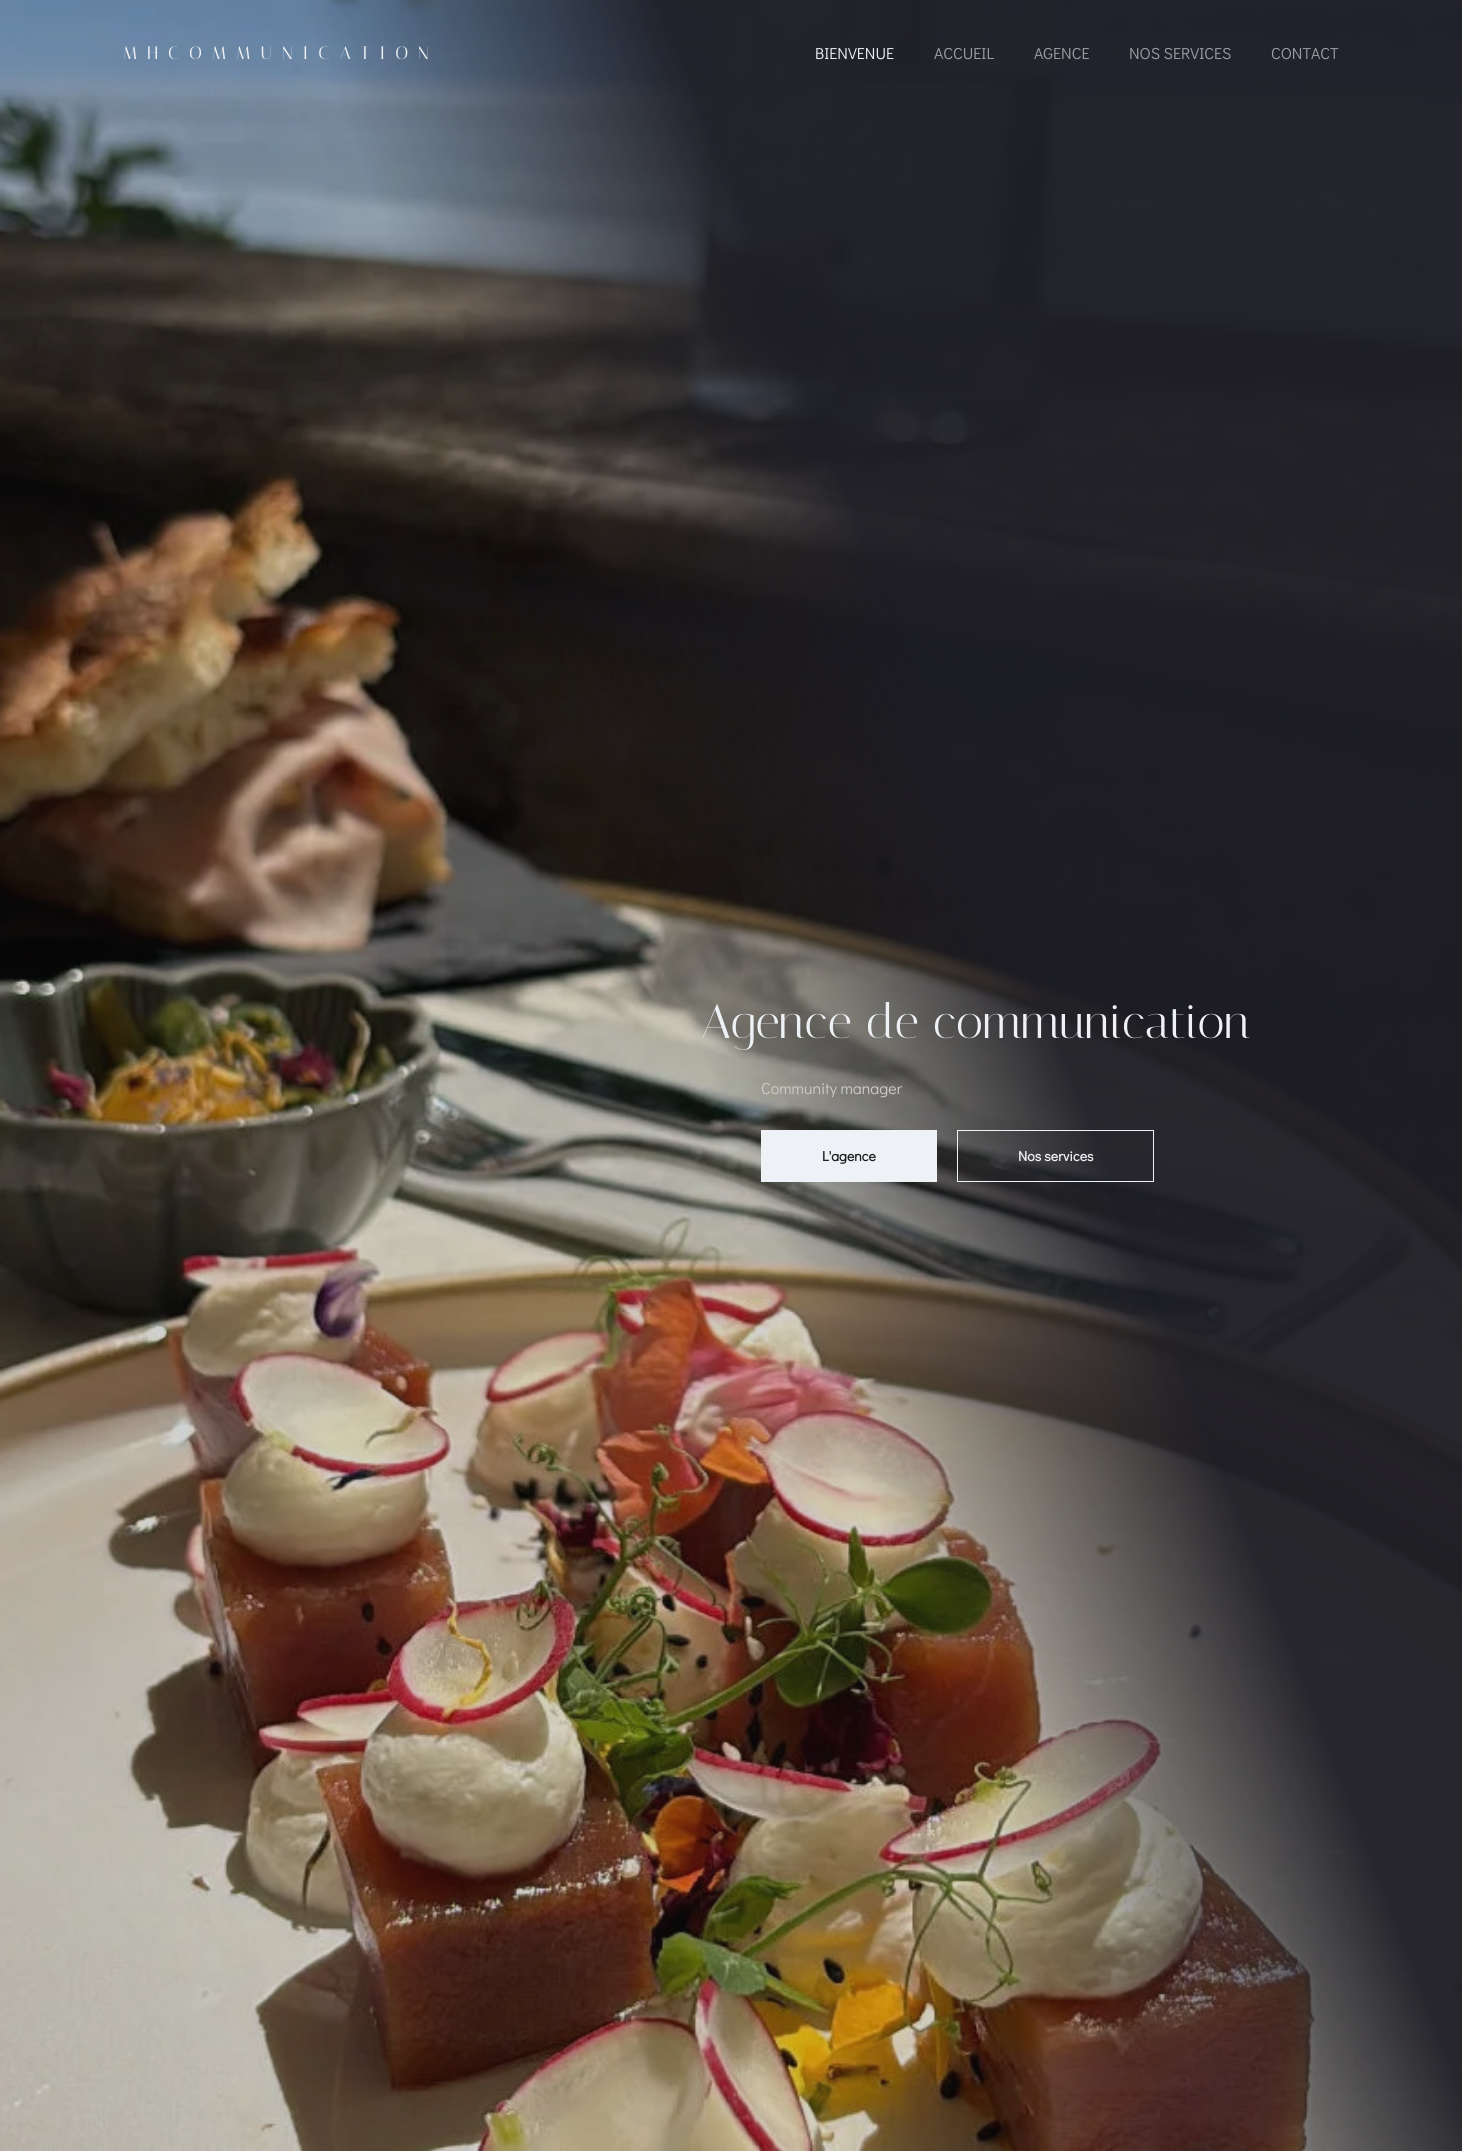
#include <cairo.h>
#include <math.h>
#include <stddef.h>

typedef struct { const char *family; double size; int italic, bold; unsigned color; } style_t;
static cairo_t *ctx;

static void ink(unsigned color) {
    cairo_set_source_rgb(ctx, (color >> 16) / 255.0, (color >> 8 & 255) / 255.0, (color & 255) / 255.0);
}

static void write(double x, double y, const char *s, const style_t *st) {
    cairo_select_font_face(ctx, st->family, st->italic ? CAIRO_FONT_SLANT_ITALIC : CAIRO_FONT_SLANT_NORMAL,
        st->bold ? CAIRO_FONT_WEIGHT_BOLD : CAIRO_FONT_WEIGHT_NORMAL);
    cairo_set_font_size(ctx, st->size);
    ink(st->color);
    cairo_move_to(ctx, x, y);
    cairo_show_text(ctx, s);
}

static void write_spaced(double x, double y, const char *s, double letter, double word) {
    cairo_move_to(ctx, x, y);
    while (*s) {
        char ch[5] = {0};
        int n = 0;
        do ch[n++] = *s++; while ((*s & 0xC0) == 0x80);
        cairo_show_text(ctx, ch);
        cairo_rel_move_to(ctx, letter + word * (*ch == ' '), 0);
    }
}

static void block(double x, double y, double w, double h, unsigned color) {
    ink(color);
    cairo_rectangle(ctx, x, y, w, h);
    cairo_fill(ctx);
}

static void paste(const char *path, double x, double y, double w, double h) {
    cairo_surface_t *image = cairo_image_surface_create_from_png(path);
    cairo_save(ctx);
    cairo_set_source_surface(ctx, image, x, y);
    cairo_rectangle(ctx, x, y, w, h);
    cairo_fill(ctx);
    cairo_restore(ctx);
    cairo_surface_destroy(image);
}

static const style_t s1 = {"Didact Gothic", 16, 0, 0, 0xeef1f5};
static const style_t s2 = {"Didact Gothic", 16, 0, 0, 0x9c9ea4};
static const style_t s3 = {"Italiana", 48, 0, 0, 0xeef1f5};
static const style_t s4 = {"Didact Gothic", 16, 0, 0, 0xcecdcb};
static const style_t s5 = {"Didact Gothic", 14, 0, 1, 0x1f1f20};
static const style_t s6 = {"Didact Gothic", 14, 0, 1, 0xeef1f5};

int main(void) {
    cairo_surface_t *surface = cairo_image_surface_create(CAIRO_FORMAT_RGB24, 1462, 2151);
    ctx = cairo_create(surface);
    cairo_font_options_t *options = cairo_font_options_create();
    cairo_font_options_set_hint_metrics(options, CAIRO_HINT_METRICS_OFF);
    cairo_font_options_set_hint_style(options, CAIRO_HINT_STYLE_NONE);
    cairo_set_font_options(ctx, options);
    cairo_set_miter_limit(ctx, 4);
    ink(0xffffff);
    cairo_paint(ctx);
    paste("pic1.png", 0, 0, 1462, 2151);
    cairo_select_font_face(ctx, "Italiana", CAIRO_FONT_SLANT_NORMAL, CAIRO_FONT_WEIGHT_NORMAL);
    cairo_set_font_size(ctx, 18);
    ink(0xeef1f5);
    write_spaced(123, 59, "MHCOMMUNICATION", 10, 0);
    write(815, 59, "BIENVENUE", &s1);
    write(934, 59, "ACCUEIL", &s2);
    write(1034, 59, "AGENCE", &s2);
    write(1129, 59, "NOS SERVICES", &s2);
    write(1271, 59, "CONTACT", &s2);
    write(701, 1038, "Agence de communication", &s3);
    write(761, 1094, "Community manager", &s4);
    block(761, 1130, 176, 52, 0xeef1f5);
    write(822, 1161, "L'agence", &s5);
    cairo_rectangle(ctx, 957.5, 1130.5, 196, 51);
    ink(0xeef1f5);
    cairo_set_line_width(ctx, 1);
    cairo_stroke(ctx);
    write(1018, 1161, "Nos services", &s6);
    cairo_surface_write_to_png(surface, "screenshot.png");
    cairo_font_options_destroy(options);
    cairo_destroy(ctx);
    cairo_surface_destroy(surface);
    return 0;
}
